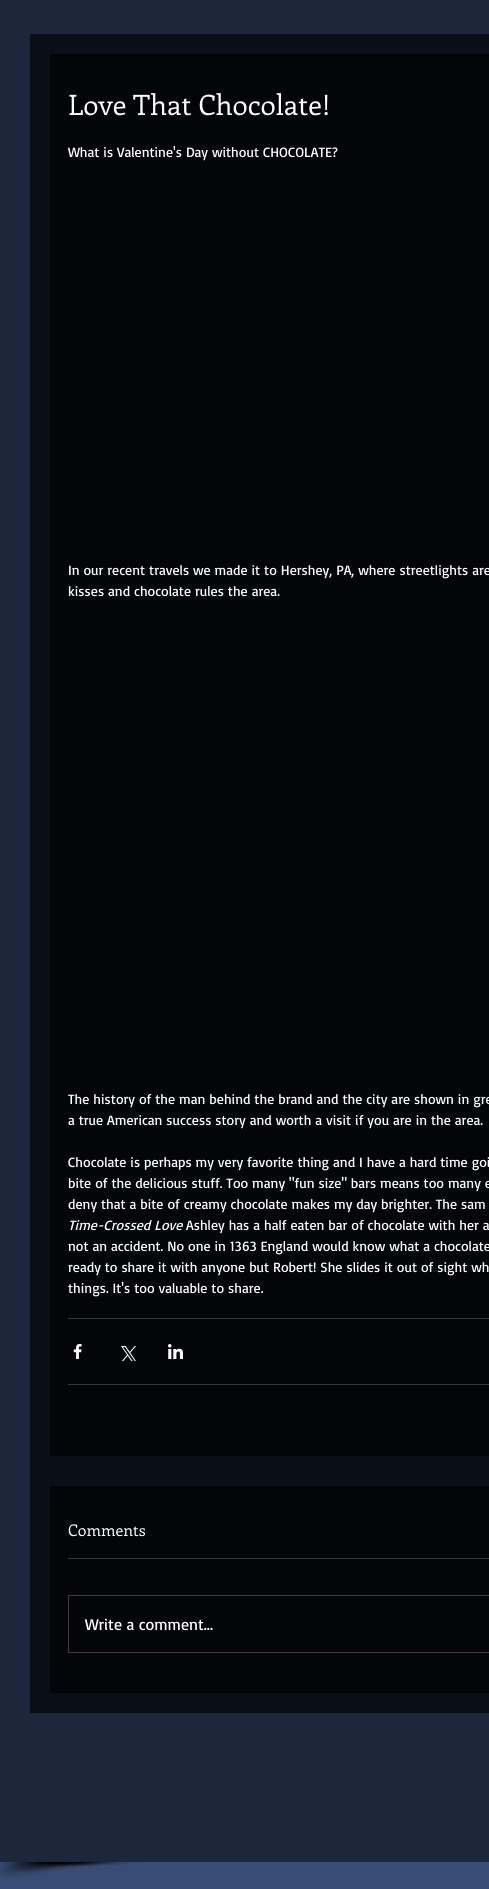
#include <cairo.h>
#include <math.h>
#include <stddef.h>

typedef struct { const char *family; double size; int italic, bold; unsigned color; } style_t;
static cairo_t *ctx;

static void ink(unsigned color) {
    cairo_set_source_rgb(ctx, (color >> 16) / 255.0, (color >> 8 & 255) / 255.0, (color & 255) / 255.0);
}

static void write(double x, double y, const char *s, const style_t *st) {
    cairo_select_font_face(ctx, st->family, st->italic ? CAIRO_FONT_SLANT_ITALIC : CAIRO_FONT_SLANT_NORMAL,
        st->bold ? CAIRO_FONT_WEIGHT_BOLD : CAIRO_FONT_WEIGHT_NORMAL);
    cairo_set_font_size(ctx, st->size);
    ink(st->color);
    cairo_move_to(ctx, x, y);
    cairo_show_text(ctx, s);
}

static void block(double x, double y, double w, double h, unsigned color) {
    ink(color);
    cairo_rectangle(ctx, x, y, w, h);
    cairo_fill(ctx);
}

static void paste(const char *path, double x, double y, double w, double h) {
    cairo_surface_t *image = cairo_image_surface_create_from_png(path);
    cairo_save(ctx);
    cairo_set_source_surface(ctx, image, x, y);
    cairo_rectangle(ctx, x, y, w, h);
    cairo_fill(ctx);
    cairo_restore(ctx);
    cairo_surface_destroy(image);
}

static const style_t s1 = {"Enriqueta", 28, 0, 0, 0xffffff};
static const style_t s2 = {"Basic", 14, 0, 0, 0xffffff};
static const style_t s3 = {"Basic", 14, 1, 0, 0xffffff};
static const style_t s4 = {"Enriqueta", 16, 0, 0, 0xffffff};
static const style_t s5 = {"Basic", 16, 0, 0, 0xffffff};

int main(void) {
    cairo_surface_t *surface = cairo_image_surface_create(CAIRO_FORMAT_RGB24, 489, 1889);
    ctx = cairo_create(surface);
    cairo_font_options_t *options = cairo_font_options_create();
    cairo_font_options_set_hint_metrics(options, CAIRO_HINT_METRICS_OFF);
    cairo_font_options_set_hint_style(options, CAIRO_HINT_STYLE_NONE);
    cairo_set_font_options(ctx, options);
    cairo_set_miter_limit(ctx, 4);
    ink(0x394c75);
    cairo_paint(ctx);
    block(0, 0, 489, 1862, 0x1d273c);
    paste("pic1.png", 0, 1862, 137, 16);
    block(30, 34, 459, 1679, 0x0a0e16);
    block(50, 54, 439, 1402, 0x040508);
    write(68, 115, "Love That Chocolate!", &s1);
    write(68, 157, "What is Valentine's Day without CHOCOLATE?", &s2);
    write(68, 575, "In our recent travels we made it to Hershey, PA, where streetlights are", &s2);
    write(68, 596, "kisses and chocolate rules the area.", &s2);
    write(68, 1104, "The history of the man behind the brand and the city are shown in gre", &s2);
    write(68, 1125, "a true American success story and worth a visit if you are in the area.", &s2);
    write(68, 1167, "Chocolate is perhaps my very favorite thing and I have a hard time goi", &s2);
    write(68, 1188, "bite of the delicious stuff. Too many \"fun size\" bars means too many e", &s2);
    write(68, 1209, "deny that a bite of creamy chocolate makes my day brighter. The sam", &s2);
    write(68, 1230, "Time-Crossed Love", &s3);
    write(186, 1230, "Ashley has a half eaten bar of chocolate with her a", &s2);
    write(68, 1251, "not an accident. No one in 1363 England would know what a chocolate", &s2);
    write(68, 1272, "ready to share it with anyone but Robert! She slides it out of sight wh", &s2);
    write(68, 1293, "things. It's too valuable to share.", &s2);
    block(68, 1318, 421, 1, 0x363739);
    paste("pic2.png", 73, 1344, 9, 15);
    paste("pic3.png", 121, 1346, 15, 15);
    paste("pic4.png", 168, 1344, 15, 15);
    block(68, 1384, 421, 1, 0x363739);
    block(50, 1486, 439, 207, 0x040508);
    write(68, 1536, "Comments", &s4);
    block(68, 1558, 421, 1, 0x363739);
    cairo_rectangle(ctx, 68.5, 1595.5, 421, 57);
    ink(0x4e3739);
    cairo_set_line_width(ctx, 1);
    cairo_stroke(ctx);
    write(85, 1630, "Write a comment...", &s5);
    cairo_surface_write_to_png(surface, "screenshot.png");
    cairo_font_options_destroy(options);
    cairo_destroy(ctx);
    cairo_surface_destroy(surface);
    return 0;
}
